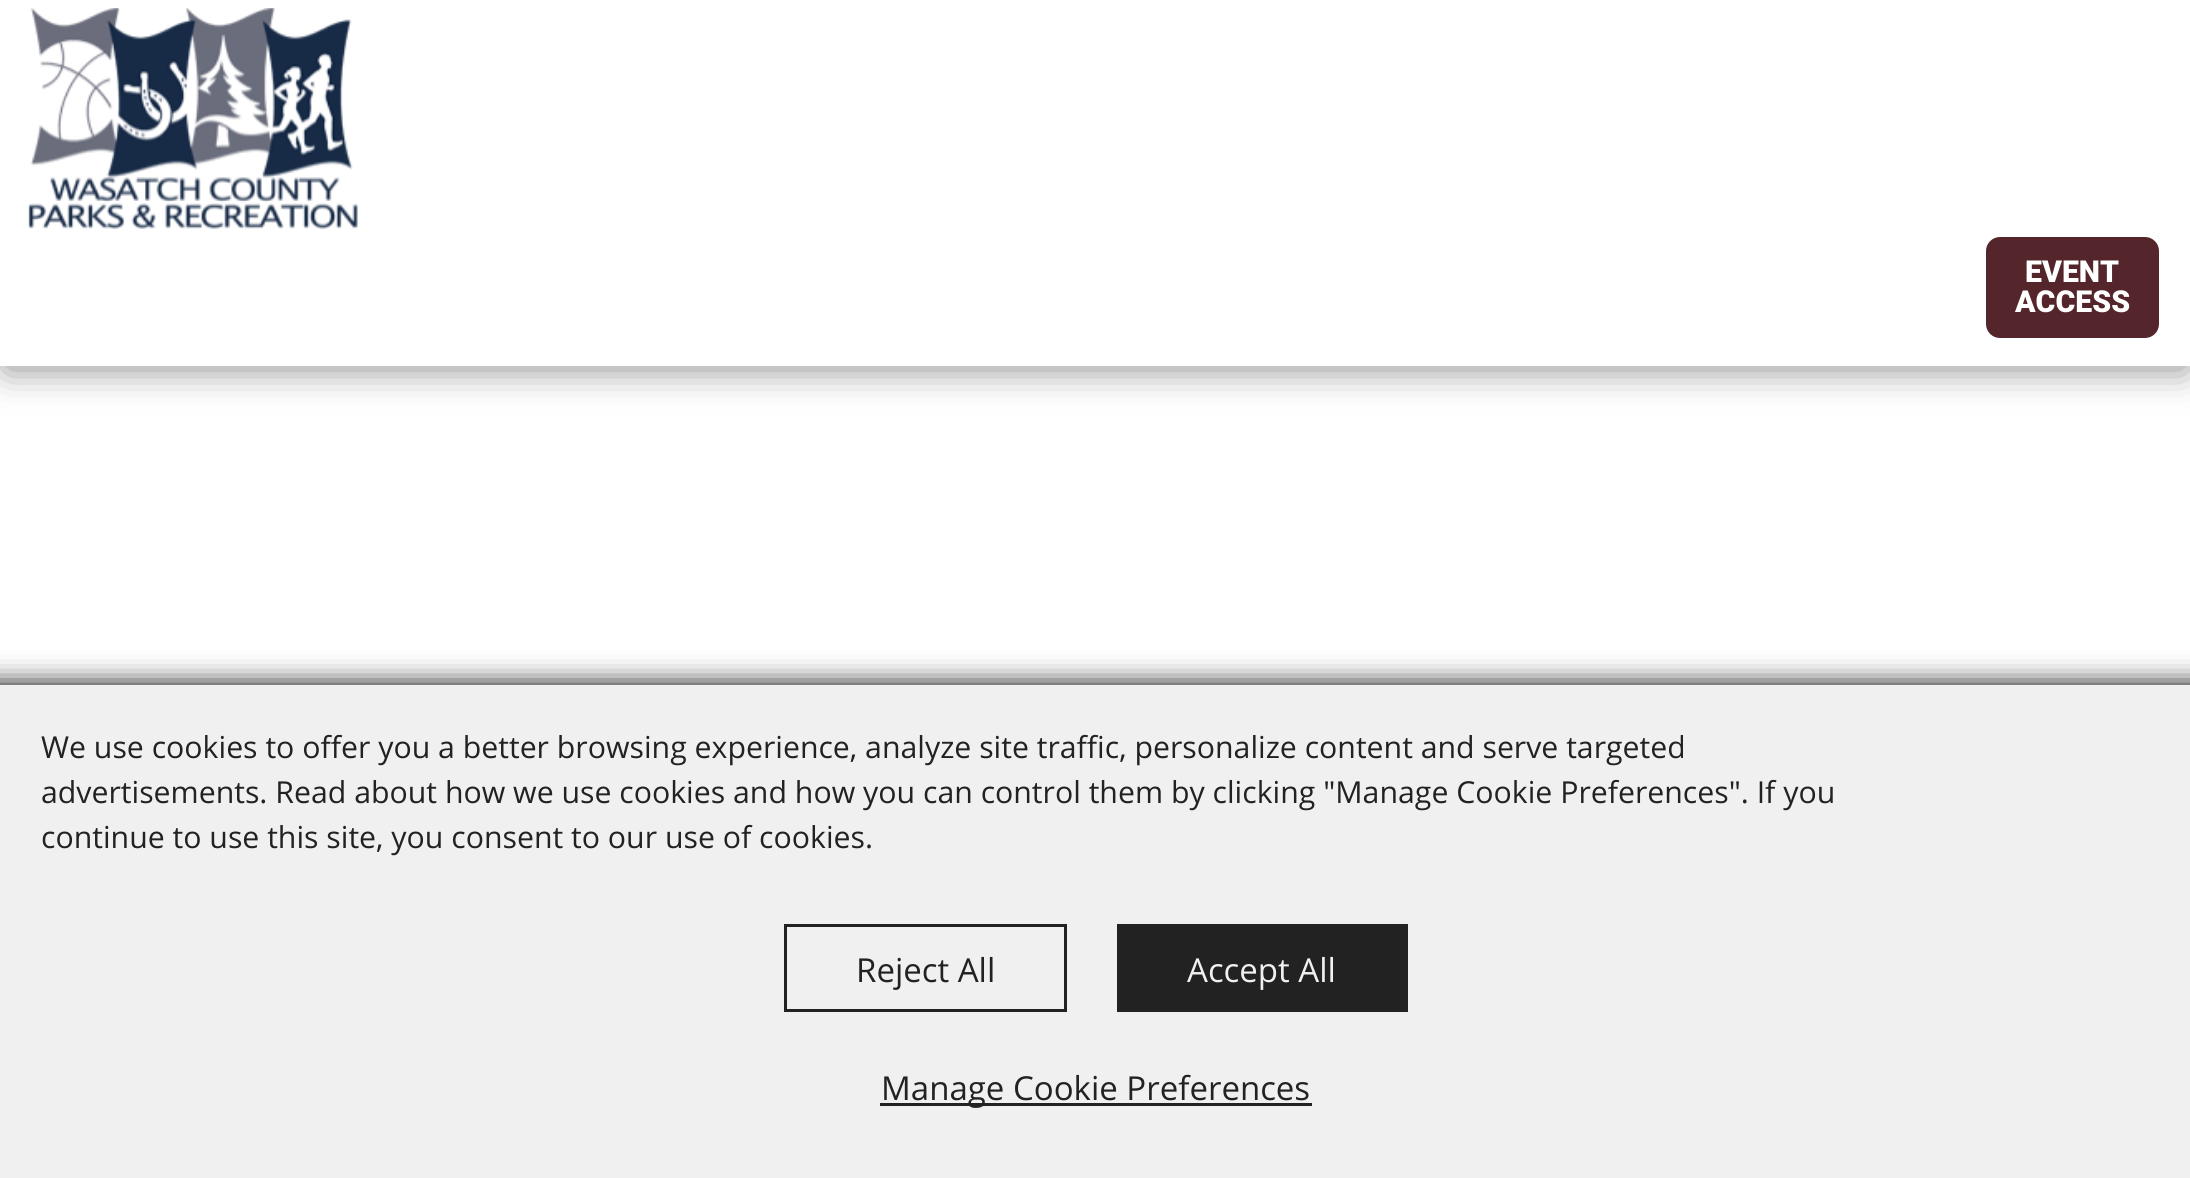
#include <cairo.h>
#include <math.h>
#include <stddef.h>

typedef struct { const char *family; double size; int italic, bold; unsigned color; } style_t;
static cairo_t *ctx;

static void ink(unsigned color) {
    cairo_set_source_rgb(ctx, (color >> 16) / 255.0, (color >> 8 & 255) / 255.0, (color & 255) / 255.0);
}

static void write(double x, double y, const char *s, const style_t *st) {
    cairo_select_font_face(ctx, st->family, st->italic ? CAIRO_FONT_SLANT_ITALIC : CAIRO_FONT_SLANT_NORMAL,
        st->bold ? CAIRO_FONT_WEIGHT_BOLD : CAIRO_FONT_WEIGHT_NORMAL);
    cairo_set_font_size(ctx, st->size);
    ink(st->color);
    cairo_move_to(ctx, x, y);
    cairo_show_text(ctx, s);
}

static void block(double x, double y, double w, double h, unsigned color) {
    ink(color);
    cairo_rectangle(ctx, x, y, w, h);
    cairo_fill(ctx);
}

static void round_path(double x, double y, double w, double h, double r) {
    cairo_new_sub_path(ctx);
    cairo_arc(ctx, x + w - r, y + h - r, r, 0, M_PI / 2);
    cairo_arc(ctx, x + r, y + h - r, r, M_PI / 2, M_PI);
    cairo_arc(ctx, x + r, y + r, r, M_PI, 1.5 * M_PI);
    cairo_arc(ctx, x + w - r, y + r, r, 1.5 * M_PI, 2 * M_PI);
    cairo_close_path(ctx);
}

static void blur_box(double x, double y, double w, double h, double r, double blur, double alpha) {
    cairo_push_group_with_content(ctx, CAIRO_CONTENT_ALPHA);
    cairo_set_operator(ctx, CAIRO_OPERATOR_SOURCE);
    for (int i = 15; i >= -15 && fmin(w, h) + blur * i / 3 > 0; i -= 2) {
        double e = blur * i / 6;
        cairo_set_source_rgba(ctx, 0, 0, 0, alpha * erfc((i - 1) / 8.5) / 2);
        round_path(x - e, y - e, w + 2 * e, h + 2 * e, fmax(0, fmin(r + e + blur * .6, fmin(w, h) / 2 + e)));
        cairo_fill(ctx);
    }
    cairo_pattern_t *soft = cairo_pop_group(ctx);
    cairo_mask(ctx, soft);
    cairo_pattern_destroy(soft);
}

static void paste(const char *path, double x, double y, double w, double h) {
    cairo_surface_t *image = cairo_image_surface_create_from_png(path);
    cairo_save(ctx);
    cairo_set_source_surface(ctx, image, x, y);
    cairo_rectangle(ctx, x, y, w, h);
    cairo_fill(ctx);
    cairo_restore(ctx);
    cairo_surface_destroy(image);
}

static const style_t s1 = {"Roboto Black", 30.25, 0, 0, 0xffffff};
static const style_t s2 = {"Open Sans", 30.25, 0, 0, 0x222222};
static const style_t s3 = {"Open Sans", 33, 0, 0, 0x222222};
static const style_t s4 = {"Open Sans", 33, 0, 0, 0xf0f0f0};

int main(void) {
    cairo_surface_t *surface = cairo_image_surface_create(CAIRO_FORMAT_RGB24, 2190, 1178);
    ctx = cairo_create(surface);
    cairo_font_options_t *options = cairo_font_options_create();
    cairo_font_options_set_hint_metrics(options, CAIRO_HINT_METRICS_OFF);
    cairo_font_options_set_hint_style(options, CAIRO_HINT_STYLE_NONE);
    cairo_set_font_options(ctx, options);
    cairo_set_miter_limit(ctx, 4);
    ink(0xffffff);
    cairo_paint(ctx);
    ink(0x000000);
    blur_box(6, 14, 2180, 355, 0, 19, 0.46);
    block(0, 0, 2190, 366, 0xffffff);
    paste("pic1.png", 28, 8, 330, 221);
    ink(0x54262b);
    round_path(1986, 237, 173, 101, 14);
    cairo_fill(ctx);
    write(2025, 282, "EVENT", &s1);
    write(2015, 312, "ACCESS", &s1);
    ink(0x000000);
    blur_box(-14, 685, 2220, 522, 0, 14, 1);
    block(0, 685, 2190, 493, 0xf0f0f0);
    write(41, 758, "We use cookies to offer you a better browsing experience, analyze site traffic, personalize content and serve targeted", &s2);
    write(41, 803, "advertisements. Read about how we use cookies and how you can control them by clicking \"Manage Cookie Preferences\". If you", &s2);
    write(41, 848, "continue to use this site, you consent to our use of cookies.", &s2);
    cairo_rectangle(ctx, 785.5, 925.5, 280, 85);
    cairo_set_line_width(ctx, 3);
    cairo_stroke(ctx);
    write(856, 982, "Reject All", &s3);
    block(1117, 924, 291, 88, 0x222222);
    write(1187, 982, "Accept All", &s4);
    block(880, 1103, 432, 3, 0x222222);
    write(881, 1100, "Manage Cookie Preferences", &s3);
    cairo_surface_write_to_png(surface, "screenshot.png");
    cairo_font_options_destroy(options);
    cairo_destroy(ctx);
    cairo_surface_destroy(surface);
    return 0;
}
